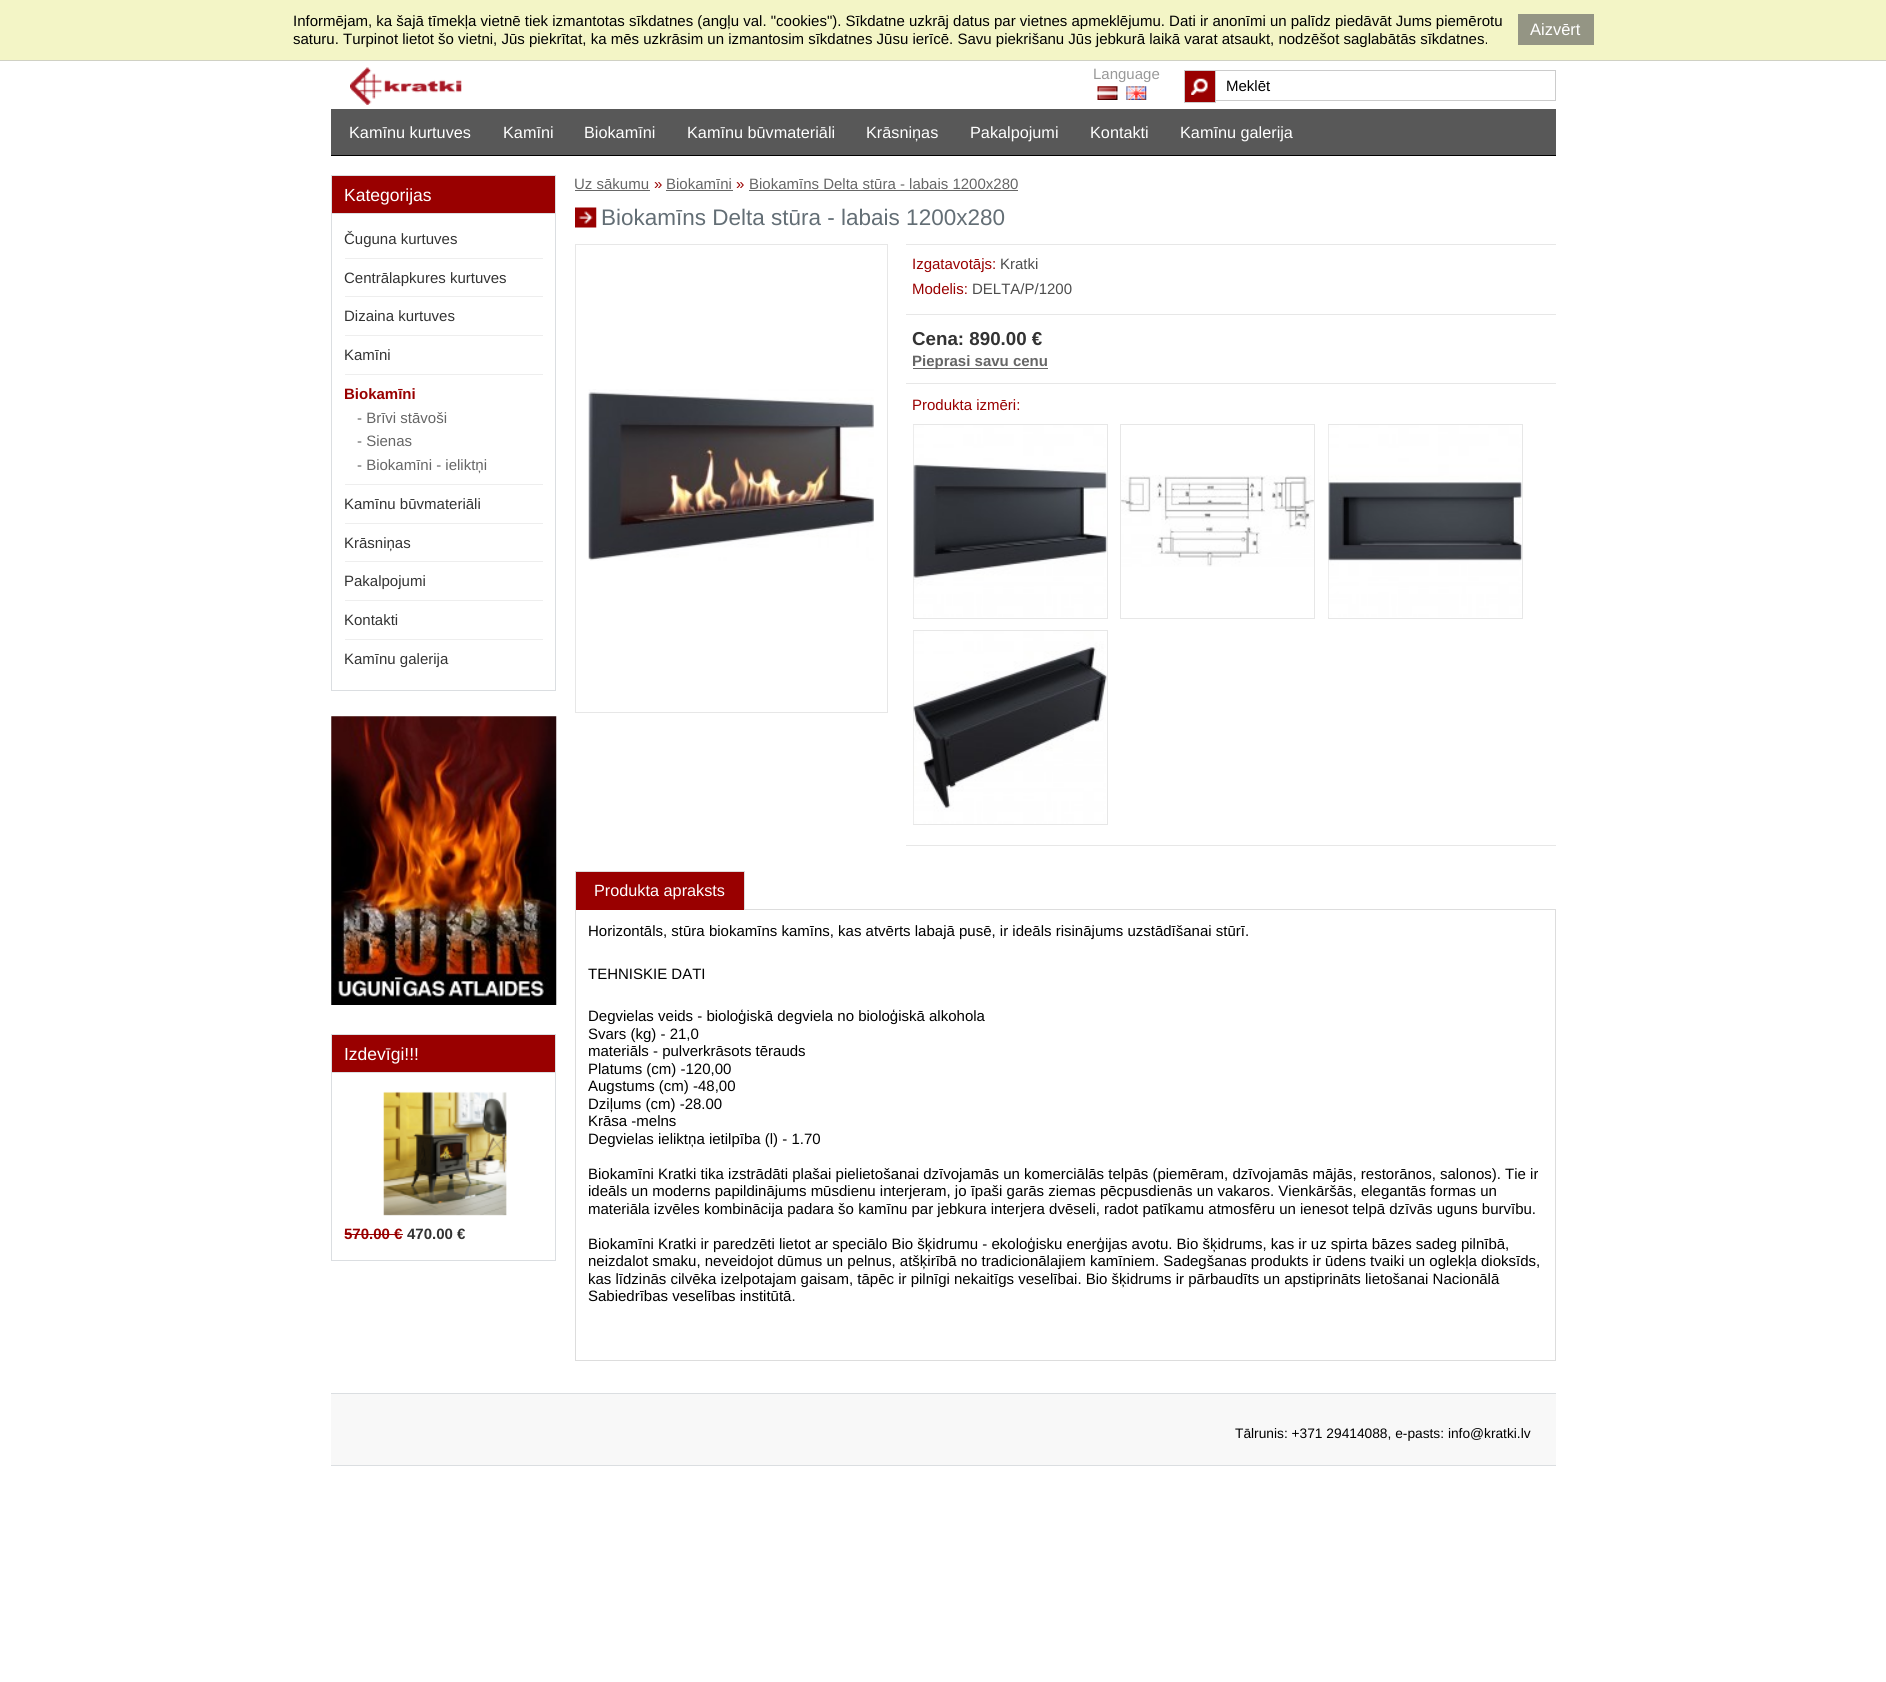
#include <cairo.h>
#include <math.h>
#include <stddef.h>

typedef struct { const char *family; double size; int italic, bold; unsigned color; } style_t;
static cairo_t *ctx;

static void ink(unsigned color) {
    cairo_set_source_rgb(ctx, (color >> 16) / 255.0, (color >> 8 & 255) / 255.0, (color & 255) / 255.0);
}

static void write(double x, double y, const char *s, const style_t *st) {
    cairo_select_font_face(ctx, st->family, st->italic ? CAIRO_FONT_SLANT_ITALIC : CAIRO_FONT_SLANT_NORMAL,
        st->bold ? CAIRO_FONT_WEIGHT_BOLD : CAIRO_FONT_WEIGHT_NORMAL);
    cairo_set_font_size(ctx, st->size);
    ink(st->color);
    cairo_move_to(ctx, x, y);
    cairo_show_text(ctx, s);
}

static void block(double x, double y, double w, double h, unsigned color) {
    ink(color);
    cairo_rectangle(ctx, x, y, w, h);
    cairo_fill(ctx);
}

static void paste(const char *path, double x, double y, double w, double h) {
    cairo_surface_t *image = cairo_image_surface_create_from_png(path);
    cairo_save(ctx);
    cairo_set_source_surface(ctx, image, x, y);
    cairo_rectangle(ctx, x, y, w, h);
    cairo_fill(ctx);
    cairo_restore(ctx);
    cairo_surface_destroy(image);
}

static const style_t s1 = {"Liberation Sans", 15, 0, 0, 0x000000};
static const style_t s2 = {"Liberation Sans", 16.5, 0, 0, 0xffffff};
static const style_t s3 = {"Liberation Sans", 15, 0, 0, 0x999999};
static const style_t s4 = {"Liberation Sans", 16.25, 0, 0, 0xffffff};
static const style_t s5 = {"Liberation Sans", 17.5, 0, 0, 0xffffff};
static const style_t s6 = {"Liberation Sans", 15, 0, 0, 0x333333};
static const style_t s7 = {"Liberation Sans", 15, 0, 1, 0x990000};
static const style_t s8 = {"Liberation Sans", 15, 0, 0, 0x666666};
static const style_t s9 = {"Liberation Sans", 15, 0, 1, 0x333333};
static const style_t s10 = {"Liberation Sans", 15, 0, 0, 0x990000};
static const style_t s11 = {"Liberation Sans", 22.5, 0, 0, 0x636e75};
static const style_t s12 = {"Liberation Sans", 15, 0, 0, 0x4d4d4d};
static const style_t s13 = {"Liberation Sans", 18.75, 0, 1, 0x333333};
static const style_t s14 = {"Liberation Sans", 15, 0, 1, 0x666666};
static const style_t s15 = {"Liberation Sans", 13.75, 0, 0, 0x000000};

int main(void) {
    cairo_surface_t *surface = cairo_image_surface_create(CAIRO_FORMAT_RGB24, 1886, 1682);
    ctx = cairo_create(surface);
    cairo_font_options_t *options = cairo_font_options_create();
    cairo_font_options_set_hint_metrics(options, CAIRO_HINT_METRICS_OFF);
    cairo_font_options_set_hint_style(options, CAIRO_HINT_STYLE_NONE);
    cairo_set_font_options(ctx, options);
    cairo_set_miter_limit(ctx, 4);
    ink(0xffffff);
    cairo_paint(ctx);
    block(0, 0, 1886, 60, 0xf3f5c6);
    block(0, 60, 1886, 1, 0xd0d1c4);
    write(293, 26, "Informējam, ka šajā tīmekļa vietnē tiek izmantotas sīkdatnes (angļu val. \"cookies\"). Sīkdatne uzkrāj datus par vietnes apmeklējumu. Dati ir anonīmi un palīdz piedāvāt Jums piemērotu", &s1);
    block(1518, 14, 76, 31, 0x949584);
    write(1530, 35, "Aizvērt", &s2);
    write(293, 44, "saturu. Turpinot lietot šo vietni, Jūs piekrītat, ka mēs uzkrāsim un izmantosim sīkdatnes Jūsu ierīcē. Savu piekrišanu Jūs jebkurā laikā varat atsaukt, nodzēšot saglabātās sīkdatnes.", &s1);
    paste("pic1.png", 350, 67, 112, 38);
    write(1093, 79, "Language", &s3);
    paste("pic2.png", 1097, 86, 21, 14);
    paste("pic3.png", 1126, 86, 21, 14);
    cairo_rectangle(ctx, 1184.5, 70.5, 371, 30);
    ink(0xcccccc);
    cairo_set_line_width(ctx, 1);
    cairo_stroke(ctx);
    block(1185, 71, 30, 31, 0x990000);
    paste("pic4.png", 1191, 78, 17, 17);
    cairo_rectangle(ctx, 1184.5, 70.5, 31, 32);
    ink(0xcccccc);
    cairo_stroke(ctx);
    write(1226, 91, "Meklēt", &s1);
    block(331, 109, 1225, 46, 0x585858);
    block(331, 155, 1225, 1, 0x000000);
    write(349, 138, "Kamīnu kurtuves", &s4);
    write(503, 138, "Kamīni", &s4);
    write(584, 138, "Biokamīni", &s4);
    write(687, 138, "Kamīnu būvmateriāli", &s4);
    write(866, 138, "Krāsniņas", &s4);
    write(970, 138, "Pakalpojumi", &s4);
    write(1090, 138, "Kontakti", &s4);
    write(1180, 138, "Kamīnu galerija", &s4);
    ink(0x990000);
    cairo_rectangle(ctx, 331.5, 175.5, 224, 38);
    cairo_fill_preserve(ctx);
    ink(0xdbdee1);
    cairo_stroke(ctx);
    write(344, 201, "Kategorijas", &s5);
    block(555, 214, 1, 477, 0xdbdee1);
    block(331, 690, 225, 1, 0xdbdee1);
    block(331, 214, 1, 477, 0xdbdee1);
    write(344, 244, "Čuguna kurtuves", &s6);
    block(345, 258, 198, 1, 0xeeeeee);
    write(344, 283, "Centrālapkures kurtuves", &s6);
    block(345, 296, 198, 1, 0xeeeeee);
    write(344, 321, "Dizaina kurtuves", &s6);
    block(345, 335, 198, 1, 0xeeeeee);
    write(344, 360, "Kamīni", &s6);
    block(345, 374, 198, 1, 0xeeeeee);
    write(344, 399, "Biokamīni", &s7);
    write(357, 423, "- Brīvi stāvoši", &s8);
    write(357, 446, "- Sienas", &s8);
    write(357, 470, "- Biokamīni - ieliktņi", &s8);
    block(345, 484, 198, 1, 0xeeeeee);
    write(344, 509, "Kamīnu būvmateriāli", &s6);
    block(345, 523, 198, 1, 0xeeeeee);
    write(344, 548, "Krāsniņas", &s6);
    block(345, 561, 198, 1, 0xeeeeee);
    write(344, 586, "Pakalpojumi", &s6);
    block(345, 600, 198, 1, 0xeeeeee);
    write(344, 625, "Kontakti", &s6);
    block(345, 639, 198, 1, 0xeeeeee);
    write(344, 664, "Kamīnu galerija", &s6);
    paste("pic5.png", 331, 716, 226, 289);
    ink(0x990000);
    cairo_rectangle(ctx, 331.5, 1034.5, 224, 38);
    cairo_fill_preserve(ctx);
    ink(0xdbdee1);
    cairo_stroke(ctx);
    write(344, 1060, "Izdevīgi!!!", &s5);
    block(555, 1073, 1, 188, 0xdbdee1);
    block(331, 1260, 225, 1, 0xdbdee1);
    block(331, 1073, 1, 188, 0xdbdee1);
    paste("pic6.png", 383, 1091, 124, 125);
    write(344, 1239, "570.00 €", &s7);
    block(345, 1234, 58, 1, 0x990000);
    write(407, 1239, "470.00 €", &s9);
    write(574, 189, "Uz sākumu", &s8);
    block(575, 190, 75, 1, 0x666666);
    write(654, 189, "»", &s10);
    write(666, 189, "Biokamīni", &s8);
    block(666, 190, 67, 1, 0x666666);
    write(736, 189, "»", &s10);
    write(749, 189, "Biokamīns Delta stūra - labais 1200x280", &s8);
    block(749, 190, 269, 1, 0x666666);
    paste("pic7.png", 575, 207, 22, 21);
    write(601, 225, "Biokamīns Delta stūra - labais 1200x280", &s11);
    cairo_rectangle(ctx, 575.5, 244.5, 312, 468);
    ink(0xe7e7e7);
    cairo_stroke(ctx);
    paste("pic8.png", 588, 389, 286, 172);
    block(906, 244, 650, 1, 0xe7e7e7);
    block(906, 314, 650, 1, 0xe7e7e7);
    write(912, 269, "Izgatavotājs:", &s10);
    write(1000, 269, "Kratki", &s12);
    write(912, 294, "Modelis:", &s10);
    write(972, 294, "DELTA/P/1200", &s12);
    block(906, 383, 650, 1, 0xe7e7e7);
    write(912, 345, "Cena: 890.00 €", &s13);
    block(913, 368, 135, 1, 0x666666);
    write(912, 366, "Pieprasi savu cenu", &s14);
    block(906, 845, 650, 1, 0xe7e7e7);
    write(912, 410, "Produkta izmēri:", &s10);
    cairo_rectangle(ctx, 913.5, 424.5, 194, 194);
    ink(0xe7e7e7);
    cairo_stroke(ctx);
    paste("pic9.png", 913, 425, 194, 192);
    cairo_rectangle(ctx, 1120.5, 424.5, 194, 194);
    cairo_stroke(ctx);
    paste("pic10.png", 1121, 475, 193, 92);
    cairo_rectangle(ctx, 1328.5, 424.5, 194, 194);
    cairo_stroke(ctx);
    paste("pic11.png", 1328, 425, 194, 192);
    cairo_rectangle(ctx, 913.5, 630.5, 194, 194);
    cairo_stroke(ctx);
    paste("pic12.png", 913, 631, 194, 193);
    block(745, 909, 811, 1, 0xdddddd);
    block(576, 872, 168, 38, 0x990000);
    block(575, 871, 170, 1, 0xdddddd);
    block(744, 871, 1, 39, 0xdddddd);
    block(575, 871, 1, 39, 0xdddddd);
    write(594, 896, "Produkta apraksts", &s4);
    block(1555, 910, 1, 451, 0xdddddd);
    block(575, 1360, 981, 1, 0xdddddd);
    block(575, 910, 1, 451, 0xdddddd);
    write(588, 936, "Horizontāls, stūra biokamīns kamīns, kas atvērts labajā pusē, ir ideāls risinājums uzstādīšanai stūrī.", &s1);
    write(588, 979, "TEHNISKIE DATI", &s1);
    write(588, 1021, "Degvielas veids - bioloģiskā degviela no bioloģiskā alkohola", &s1);
    write(588, 1039, "Svars (kg) - 21,0", &s1);
    write(588, 1056, "materiāls - pulverkrāsots tērauds", &s1);
    write(588, 1074, "Platums (cm) -120,00", &s1);
    write(588, 1091, "Augstums (cm) -48,00", &s1);
    write(588, 1109, "Dziļums (cm) -28.00", &s1);
    write(588, 1126, "Krāsa -melns", &s1);
    write(588, 1144, "Degvielas ieliktņa ietilpība (l) - 1.70", &s1);
    write(588, 1179, "Biokamīni Kratki tika izstrādāti plašai pielietošanai dzīvojamās un komerciālās telpās (piemēram, dzīvojamās mājās, restorānos, salonos). Tie ir", &s1);
    write(588, 1196, "ideāls un moderns papildinājums mūsdienu interjeram, jo īpaši garās ziemas pēcpusdienās un vakaros. Vienkāršās, elegantās formas un", &s1);
    write(588, 1214, "materiāla izvēles kombinācija padara šo kamīnu par jebkura interjera dvēseli, radot patīkamu atmosfēru un ienesot telpā dzīvās uguns burvību.", &s1);
    write(588, 1249, "Biokamīni Kratki ir paredzēti lietot ar speciālo Bio šķidrumu - ekoloģisku enerģijas avotu. Bio šķidrums, kas ir uz spirta bāzes sadeg pilnībā,", &s1);
    write(588, 1266, "neizdalot smaku, neveidojot dūmus un pelnus, atšķirībā no tradicionālajiem kamīniem. Sadegšanas produkts ir ūdens tvaiki un oglekļa dioksīds,", &s1);
    write(588, 1284, "kas līdzinās cilvēka izelpotajam gaisam, tāpēc ir pilnīgi nekaitīgs veselībai. Bio šķidrums ir pārbaudīts un apstiprināts lietošanai Nacionālā", &s1);
    write(588, 1301, "Sabiedrības veselības institūtā.", &s1);
    block(331, 1394, 1225, 71, 0xf8f8f8);
    block(331, 1393, 1225, 1, 0xdbdee1);
    block(331, 1465, 1225, 1, 0xdbdee1);
    write(1235, 1438, "Tālrunis: +371 29414088, e-pasts: info@kratki.lv", &s15);
    cairo_surface_write_to_png(surface, "screenshot.png");
    cairo_font_options_destroy(options);
    cairo_destroy(ctx);
    cairo_surface_destroy(surface);
    return 0;
}
